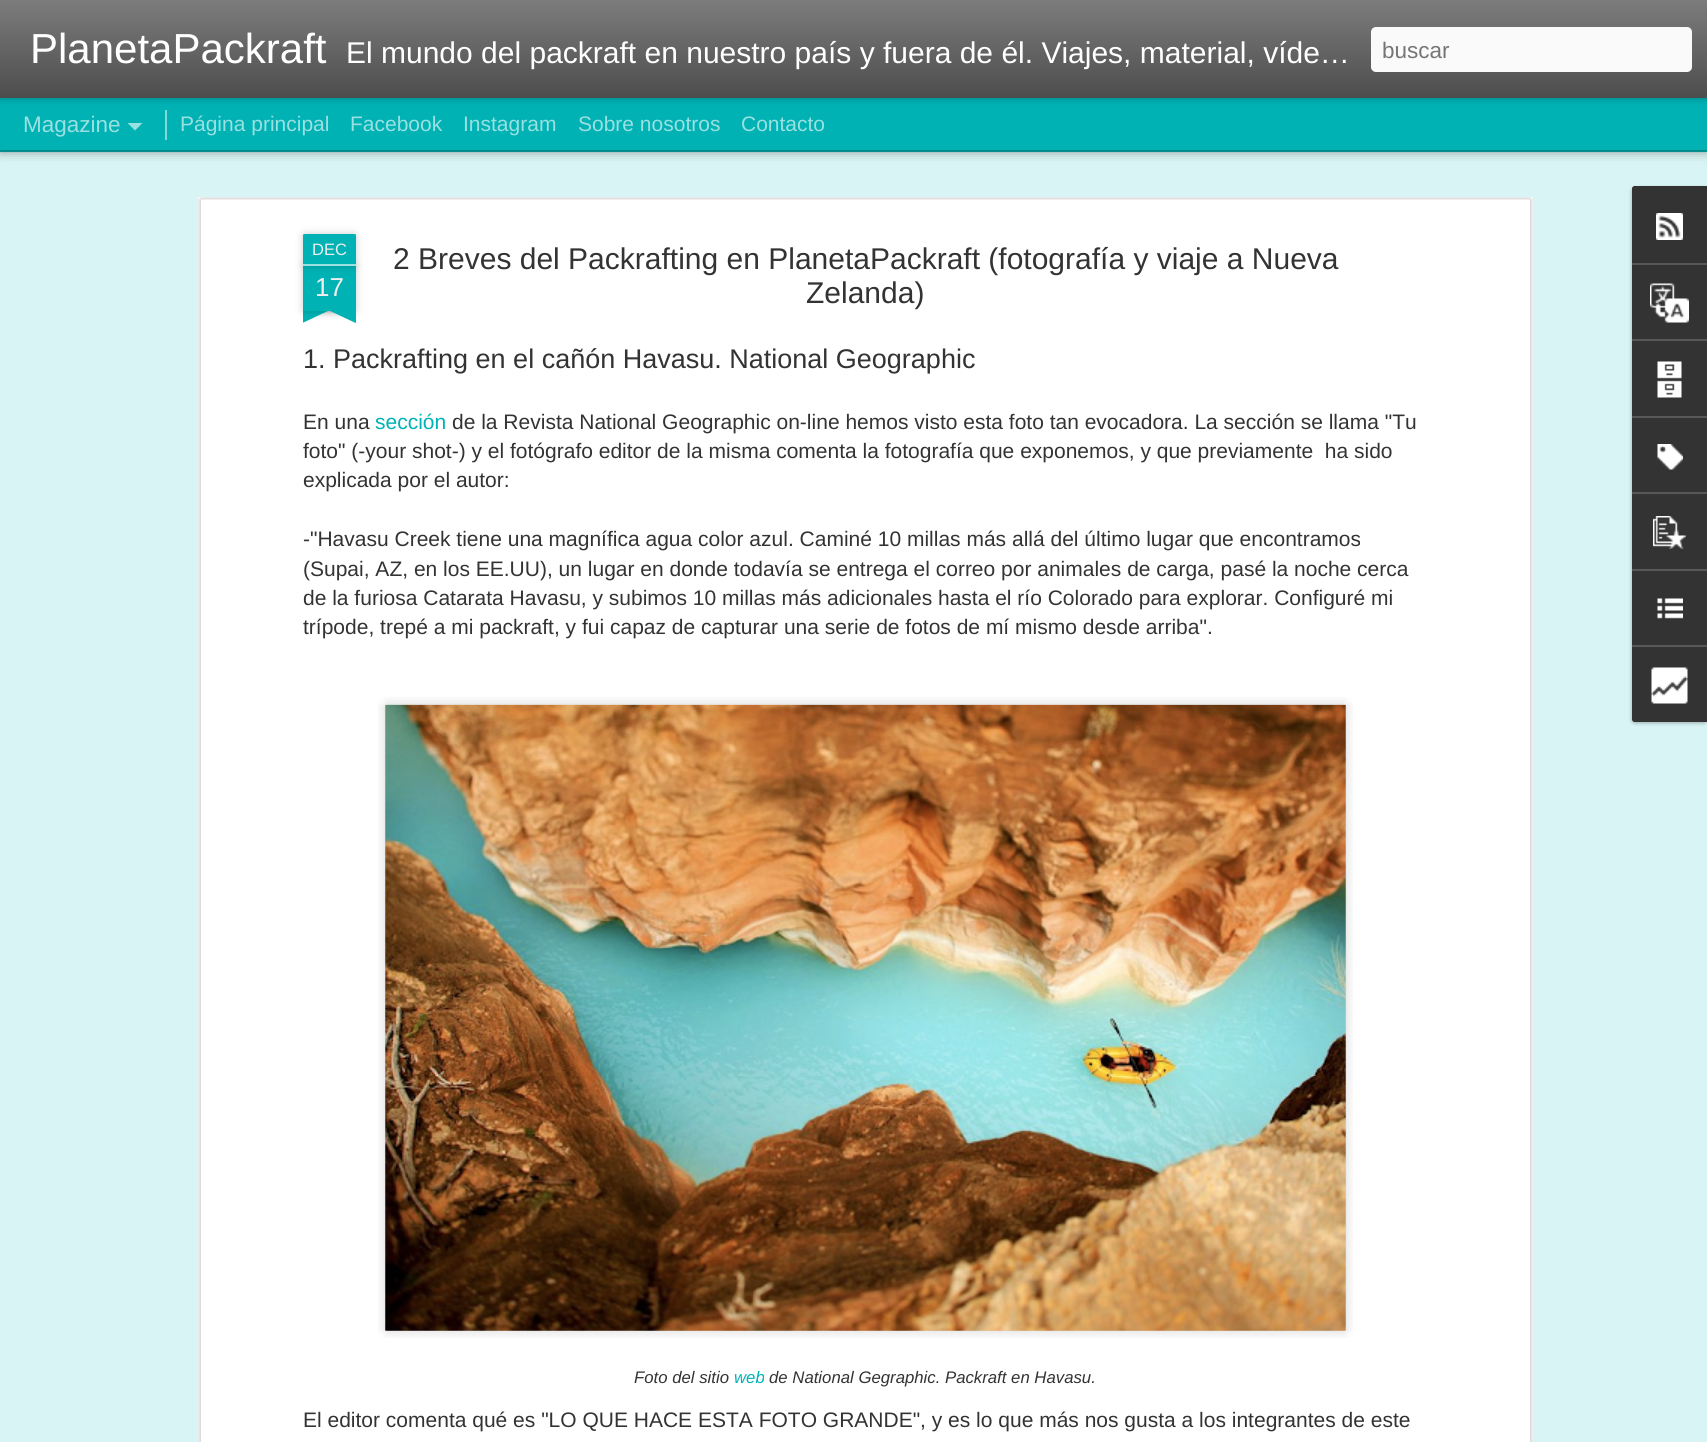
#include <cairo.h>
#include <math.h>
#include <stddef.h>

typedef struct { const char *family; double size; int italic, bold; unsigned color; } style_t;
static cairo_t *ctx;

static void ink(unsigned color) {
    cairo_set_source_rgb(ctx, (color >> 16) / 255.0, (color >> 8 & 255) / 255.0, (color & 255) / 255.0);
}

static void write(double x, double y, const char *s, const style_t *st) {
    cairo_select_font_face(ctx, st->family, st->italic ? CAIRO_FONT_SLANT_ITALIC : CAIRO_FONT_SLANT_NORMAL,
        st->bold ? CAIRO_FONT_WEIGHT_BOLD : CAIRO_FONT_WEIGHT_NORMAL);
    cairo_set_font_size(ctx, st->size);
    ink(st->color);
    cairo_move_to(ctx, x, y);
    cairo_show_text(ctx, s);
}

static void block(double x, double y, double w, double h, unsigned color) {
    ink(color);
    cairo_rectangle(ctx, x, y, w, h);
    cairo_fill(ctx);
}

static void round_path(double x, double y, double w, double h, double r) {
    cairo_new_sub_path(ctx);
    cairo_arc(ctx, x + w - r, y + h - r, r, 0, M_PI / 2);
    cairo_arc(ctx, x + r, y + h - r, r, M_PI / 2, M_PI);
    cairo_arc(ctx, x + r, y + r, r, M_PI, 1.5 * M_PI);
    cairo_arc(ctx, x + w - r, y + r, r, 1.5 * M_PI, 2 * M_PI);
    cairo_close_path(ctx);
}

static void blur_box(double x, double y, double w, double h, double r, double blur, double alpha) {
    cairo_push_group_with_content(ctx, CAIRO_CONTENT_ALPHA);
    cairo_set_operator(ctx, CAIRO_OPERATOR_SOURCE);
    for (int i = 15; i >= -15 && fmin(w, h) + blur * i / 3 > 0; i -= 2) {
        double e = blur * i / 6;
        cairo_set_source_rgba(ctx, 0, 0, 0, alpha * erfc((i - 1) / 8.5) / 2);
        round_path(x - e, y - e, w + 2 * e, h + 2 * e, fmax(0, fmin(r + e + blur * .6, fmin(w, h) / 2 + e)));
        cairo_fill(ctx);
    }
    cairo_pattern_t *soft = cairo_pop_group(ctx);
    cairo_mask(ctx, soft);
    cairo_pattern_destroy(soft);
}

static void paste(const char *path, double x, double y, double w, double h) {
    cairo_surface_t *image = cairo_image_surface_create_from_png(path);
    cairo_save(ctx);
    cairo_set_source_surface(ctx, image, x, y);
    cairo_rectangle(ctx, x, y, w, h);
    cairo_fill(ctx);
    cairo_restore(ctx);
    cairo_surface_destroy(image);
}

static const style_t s1 = {"Liberation Sans", 42, 0, 0, 0xffffff};
static const style_t s2 = {"Liberation Sans", 30, 0, 0, 0xffffff};
static const style_t s3 = {"Liberation Sans", 22.5, 0, 0, 0x757575};
static const style_t s4 = {"Liberation Sans", 22.5, 0, 0, 0x99e0e1};
static const style_t s5 = {"Liberation Sans", 21, 0, 0, 0x99e0e1};
static const style_t s6 = {"Liberation Sans", 16.5, 0, 0, 0xeeeeee};
static const style_t s7 = {"Liberation Sans", 26, 0, 0, 0xeeeeee};
static const style_t s8 = {"Liberation Sans", 30, 0, 0, 0x333333};
static const style_t s9 = {"Liberation Sans", 27, 0, 0, 0x333333};
static const style_t s10 = {"Liberation Sans", 21, 0, 0, 0x333333};
static const style_t s11 = {"Liberation Sans", 21, 0, 0, 0x00b2b4};
static const style_t s12 = {"Liberation Sans", 16.75, 1, 0, 0x333333};
static const style_t s13 = {"Liberation Sans", 16.75, 1, 0, 0x00b2b4};

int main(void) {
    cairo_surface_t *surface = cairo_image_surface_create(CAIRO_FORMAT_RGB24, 1707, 1442);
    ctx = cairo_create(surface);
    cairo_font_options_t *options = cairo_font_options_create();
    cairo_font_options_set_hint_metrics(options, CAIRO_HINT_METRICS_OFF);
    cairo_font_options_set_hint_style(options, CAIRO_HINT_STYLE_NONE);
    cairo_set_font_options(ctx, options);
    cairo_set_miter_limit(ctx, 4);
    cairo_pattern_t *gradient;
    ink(0x00b2b4);
    cairo_paint(ctx);
    block(0, 152, 1707, 1290, 0xd9f4f4);
    ink(0x000000);
    blur_box(0, 98, 1707, 52, 0, 6, 0.5);
    block(0, 98, 1707, 52, 0x00b2b4);
    block(165, 110, 2, 30, 0x80d9da);
    ink(0x000000);
    blur_box(0, 0, 1707, 98, 0, 4, 0.3);
    gradient = cairo_pattern_create_linear(0, 0, 0, 98);
    cairo_pattern_add_color_stop_rgba(gradient, 0, 0.486, 0.486, 0.486, 1);
    cairo_pattern_add_color_stop_rgba(gradient, 1, 0.302, 0.302, 0.302, 1);
    cairo_set_source(ctx, gradient);
    cairo_pattern_destroy(gradient);
    cairo_rectangle(ctx, 0, 0, 1707, 98);
    cairo_fill(ctx);
    write(30, 63, "PlanetaPackraft", &s1);
    write(346, 63, "El mundo del packraft en nuestro país y fuera de él. Viajes, material, víde…", &s2);
    ink(0xfafafa);
    round_path(1371, 27, 321, 45, 5);
    cairo_fill(ctx);
    write(1382, 58, "buscar", &s3);
    write(23, 132, "Magazine", &s4);
    cairo_new_path(ctx);
    cairo_move_to(ctx, 127.5, 123);
    cairo_line_to(ctx, 142.5, 123);
    cairo_line_to(ctx, 135, 130.5);
    cairo_close_path(ctx);
    cairo_fill(ctx);
    write(180, 131, "Página principal", &s5);
    write(350, 131, "Facebook", &s5);
    write(463, 131, "Instagram", &s5);
    write(578, 131, "Sobre nosotros", &s5);
    write(741, 131, "Contacto", &s5);
    block(198, 197, 1335, 1245, 0xffffff);
    paste("pic1.png", 198, 197, 1335, 1245);
    ink(0x000000);
    blur_box(303, 266, 53, 45, 0, 4, 0.2);
    block(303, 266, 53, 45, 0x00b2b4);
    ink(0x000000);
    blur_box(303, 234, 53, 32, 1.5, 4, 0.2);
    ink(0x00b2b4);
    cairo_new_path(ctx);
    cairo_move_to(ctx, 304.5, 234);
    cairo_line_to(ctx, 354.5, 234);
    cairo_curve_to(ctx, 355.5, 234, 356, 234.5, 356, 235.5);
    cairo_line_to(ctx, 356, 266);
    cairo_line_to(ctx, 303, 266);
    cairo_line_to(ctx, 303, 235.5);
    cairo_curve_to(ctx, 303, 234.5, 303.5, 234, 304.5, 234);
    cairo_close_path(ctx);
    cairo_fill(ctx);
    block(303, 264, 53, 2, 0x99e0e1);
    write(312, 255, "DEC", &s6);
    write(315, 296, "17", &s7);
    cairo_save(ctx);
    cairo_rectangle(ctx, 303, 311, 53, 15);
    cairo_clip(ctx);
    ink(0x000000);
    blur_box(290, 296, 75, 15, 0, 4, 0.2);
    cairo_restore(ctx);
    cairo_save(ctx);
    cairo_rectangle(ctx, 303, 311, 53, 15);
    cairo_clip(ctx);
    ink(0x00b2b4);
    cairo_new_path(ctx);
    cairo_move_to(ctx, 290, 312);
    cairo_line_to(ctx, 358, 280);
    cairo_line_to(ctx, 364, 294);
    cairo_line_to(ctx, 296, 326);
    cairo_close_path(ctx);
    cairo_fill(ctx);
    cairo_restore(ctx);
    cairo_save(ctx);
    cairo_rectangle(ctx, 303, 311, 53, 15);
    cairo_clip(ctx);
    ink(0x000000);
    blur_box(294, 296, 75, 15, 0, 4, 0.2);
    cairo_restore(ctx);
    cairo_save(ctx);
    cairo_rectangle(ctx, 303, 311, 53, 15);
    cairo_clip(ctx);
    ink(0x00b2b4);
    cairo_new_path(ctx);
    cairo_move_to(ctx, 301, 280);
    cairo_line_to(ctx, 369, 312);
    cairo_line_to(ctx, 362, 326);
    cairo_line_to(ctx, 294, 294);
    cairo_close_path(ctx);
    cairo_fill(ctx);
    cairo_restore(ctx);
    write(393, 269, "2 Breves del Packrafting en PlanetaPackraft (fotografía y viaje a Nueva", &s8);
    write(806, 303, "Zelanda)", &s8);
    write(303, 368, "1. Packrafting en el cañón Havasu. National Geographic", &s9);
    write(303, 429, "En una", &s10);
    write(375, 429, "sección", &s11);
    write(452, 429, "de la Revista National Geographic on-line hemos visto esta foto tan evocadora. La sección se llama \"Tu", &s10);
    write(303, 458, "foto\" (-your shot-) y el fotógrafo editor de la misma comenta la fotografía que exponemos, y que previamente  ha sido", &s10);
    write(303, 487, "explicada por el autor:", &s10);
    write(303, 546, "-\"Havasu Creek tiene una magnífica agua color azul. Caminé 10 millas más allá del último lugar que encontramos", &s10);
    write(303, 576, "(Supai, AZ, en los EE.UU), un lugar en donde todavía se entrega el correo por animales de carga, pasé la noche cerca", &s10);
    write(303, 605, "de la furiosa Catarata Havasu, y subimos 10 millas más adicionales hasta el río Colorado para explorar. Configuré mi", &s10);
    write(303, 634, "trípode, trepé a mi packraft, y fui capaz de capturar una serie de fotos de mí mismo desde arriba\".", &s10);
    paste("pic2.png", 378, 697, 975, 641);
    paste("pic3.png", 385, 704, 961, 627);
    write(634, 1383, "Foto del sitio", &s12);
    write(734, 1383, "web", &s13);
    write(769, 1383, "de National Gegraphic. Packraft en Havasu.", &s12);
    write(303, 1427, "El editor comenta qué es \"LO QUE HACE ESTA FOTO GRANDE\", y es lo que más nos gusta a los integrantes de este", &s10);
    ink(0x000000);
    blur_box(1632, 188, 75, 535, 3, 2, 0.3);
    ink(0x333333);
    cairo_new_path(ctx);
    cairo_move_to(ctx, 1635, 186);
    cairo_line_to(ctx, 1707, 186);
    cairo_line_to(ctx, 1707, 722);
    cairo_line_to(ctx, 1635, 722);
    cairo_curve_to(ctx, 1633.5, 722, 1632, 720.5, 1632, 719);
    cairo_line_to(ctx, 1632, 189);
    cairo_curve_to(ctx, 1632, 187.5, 1633.5, 186, 1635, 186);
    cairo_close_path(ctx);
    cairo_fill(ctx);
    cairo_new_path(ctx);
    cairo_move_to(ctx, 1635, 186);
    cairo_line_to(ctx, 1707, 186);
    cairo_line_to(ctx, 1707, 263);
    cairo_line_to(ctx, 1632, 263);
    cairo_line_to(ctx, 1632, 189);
    cairo_curve_to(ctx, 1632, 187.5, 1633.5, 186, 1635, 186);
    cairo_close_path(ctx);
    cairo_fill(ctx);
    paste("pic4.png", 1656, 213, 27, 27);
    block(1632, 263, 75, 2, 0x585858);
    paste("pic5.png", 1650, 283, 39, 40);
    block(1632, 339, 75, 2, 0x585858);
    paste("pic6.png", 1657, 361, 25, 37);
    block(1632, 416, 75, 2, 0x585858);
    paste("pic7.png", 1657, 444, 26, 26);
    block(1632, 492, 75, 2, 0x585858);
    paste("pic8.png", 1653, 516, 33, 33);
    block(1632, 569, 75, 2, 0x585858);
    paste("pic9.png", 1657, 598, 26, 21);
    ink(0x333333);
    cairo_new_path(ctx);
    cairo_move_to(ctx, 1632, 645);
    cairo_line_to(ctx, 1707, 645);
    cairo_line_to(ctx, 1707, 722);
    cairo_line_to(ctx, 1635, 722);
    cairo_curve_to(ctx, 1633.5, 722, 1632, 720.5, 1632, 719);
    cairo_close_path(ctx);
    cairo_fill(ctx);
    block(1632, 645, 75, 2, 0x585858);
    paste("pic10.png", 1651, 667, 37, 37);
    cairo_surface_write_to_png(surface, "screenshot.png");
    cairo_font_options_destroy(options);
    cairo_destroy(ctx);
    cairo_surface_destroy(surface);
    return 0;
}
